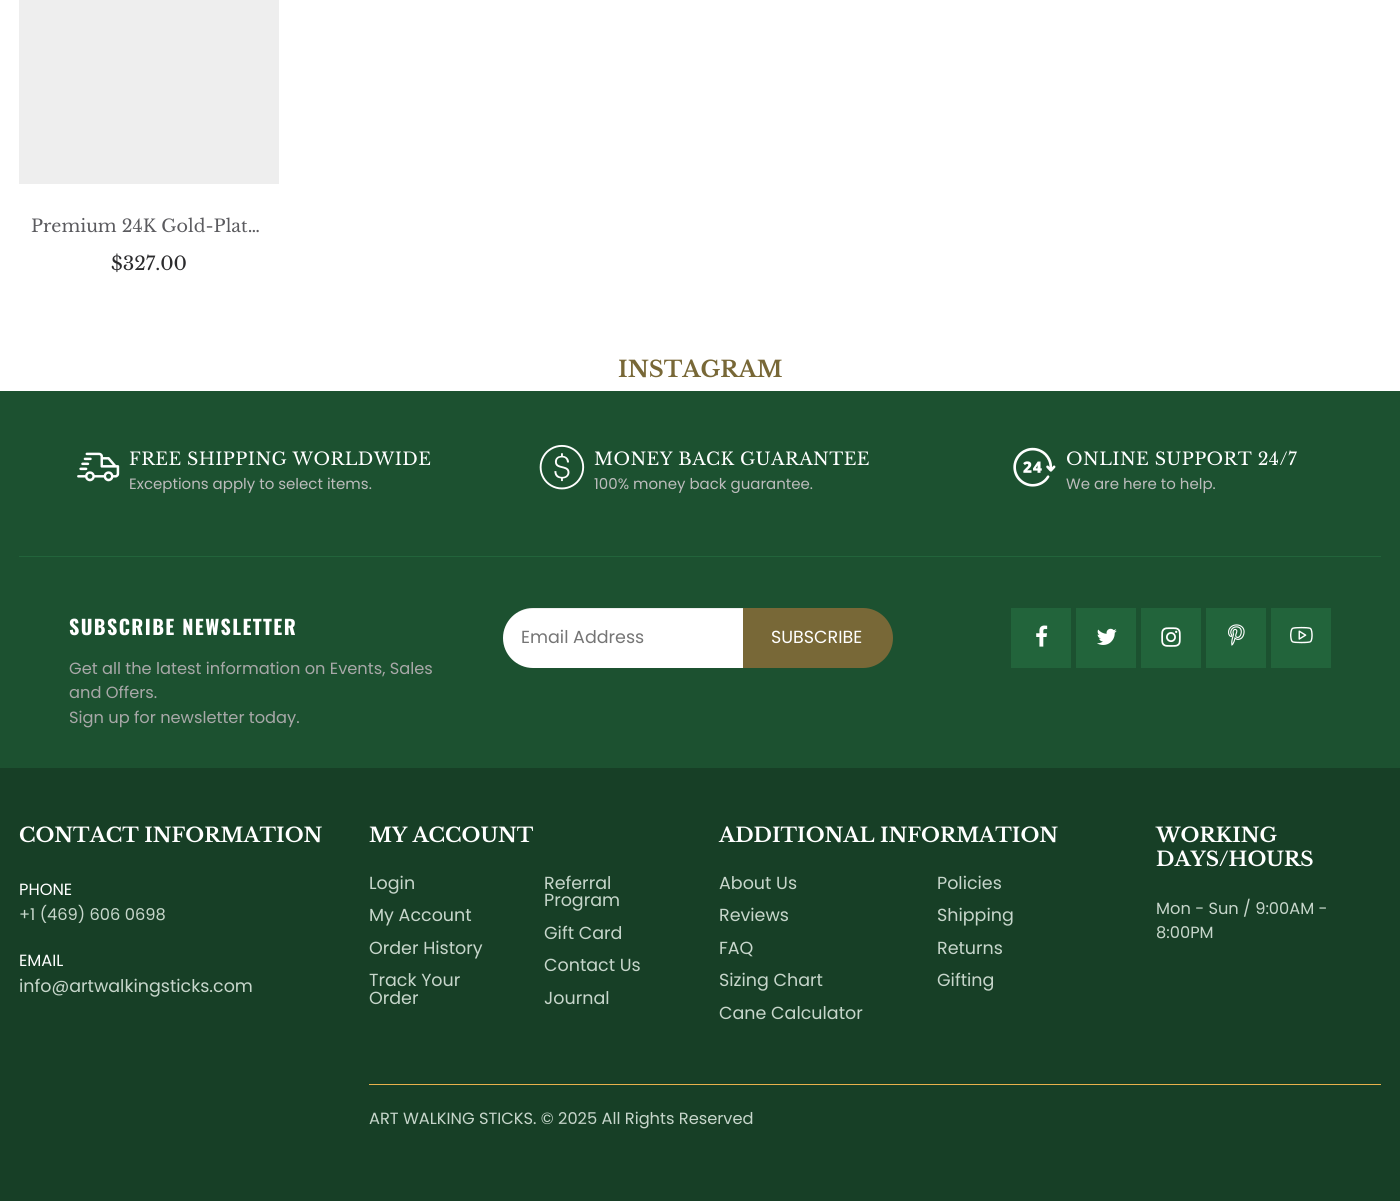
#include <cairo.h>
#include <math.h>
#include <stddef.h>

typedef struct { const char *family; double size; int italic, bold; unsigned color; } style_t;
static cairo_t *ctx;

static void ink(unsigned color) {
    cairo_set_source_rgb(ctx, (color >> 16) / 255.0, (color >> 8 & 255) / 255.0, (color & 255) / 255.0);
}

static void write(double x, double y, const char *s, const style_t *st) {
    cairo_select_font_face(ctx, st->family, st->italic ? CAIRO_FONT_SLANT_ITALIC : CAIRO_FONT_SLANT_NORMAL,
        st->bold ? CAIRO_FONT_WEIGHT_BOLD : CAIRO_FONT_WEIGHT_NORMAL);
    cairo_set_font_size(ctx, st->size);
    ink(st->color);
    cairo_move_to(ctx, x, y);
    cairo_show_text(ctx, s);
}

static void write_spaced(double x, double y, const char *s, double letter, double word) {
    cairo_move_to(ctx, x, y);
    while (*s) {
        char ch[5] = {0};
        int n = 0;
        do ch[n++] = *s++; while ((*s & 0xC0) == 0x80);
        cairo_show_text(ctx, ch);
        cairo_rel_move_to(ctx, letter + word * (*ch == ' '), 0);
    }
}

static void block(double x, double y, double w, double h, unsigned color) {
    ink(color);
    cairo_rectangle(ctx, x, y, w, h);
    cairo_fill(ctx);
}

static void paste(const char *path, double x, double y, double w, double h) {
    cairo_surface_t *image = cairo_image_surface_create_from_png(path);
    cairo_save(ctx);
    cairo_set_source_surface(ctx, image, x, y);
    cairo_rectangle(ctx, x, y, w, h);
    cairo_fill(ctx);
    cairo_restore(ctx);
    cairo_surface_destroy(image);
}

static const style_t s1 = {"Libre Baskerville", 17.5, 0, 0, 0x5b5b5f};
static const style_t s2 = {"Libre Baskerville", 18.75, 0, 0, 0x2b2b2d};
static const style_t s3 = {"Libre Baskerville", 22.5, 0, 1, 0x786837};
static const style_t s4 = {"Poppins", 15, 0, 0, 0xbcbcbc};
static const style_t s5 = {"Poppins", 16.25, 0, 0, 0xa8a8a8};
static const style_t s6 = {"Poppins", 17.5, 0, 0, 0x757575};
static const style_t s7 = {"Poppins", 17.5, 0, 0, 0xffffff};
static const style_t s8 = {"Libre Baskerville", 20, 0, 1, 0xffffff};
static const style_t s9 = {"Poppins", 16.25, 0, 0, 0xffffff};
static const style_t s10 = {"Poppins", 16.25, 0, 0, 0xc7d6cb};
static const style_t s11 = {"Poppins", 17.5, 0, 0, 0xc7d6cb};

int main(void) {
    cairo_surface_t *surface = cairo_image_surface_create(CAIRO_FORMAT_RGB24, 1400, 1201);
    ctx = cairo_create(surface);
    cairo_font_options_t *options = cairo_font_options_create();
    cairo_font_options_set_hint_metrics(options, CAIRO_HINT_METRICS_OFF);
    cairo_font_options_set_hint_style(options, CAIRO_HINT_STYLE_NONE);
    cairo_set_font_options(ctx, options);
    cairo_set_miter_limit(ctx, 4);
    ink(0xffffff);
    cairo_paint(ctx);
    block(19, 0, 260, 184, 0xeeeeee);
    write(31, 232, "Premium 24K Gold-Plat…", &s1);
    write(111, 270, "$327.00", &s2);
    write(618, 377, "INSTAGRAM", &s3);
    block(0, 391, 1400, 377, 0x1c5130);
    paste("pic1.png", 77, 452, 43, 30);
    cairo_select_font_face(ctx, "Libre Baskerville", CAIRO_FONT_SLANT_NORMAL, CAIRO_FONT_WEIGHT_NORMAL);
    cairo_set_font_size(ctx, 17.5);
    ink(0xffffff);
    write_spaced(129, 465, "FREE SHIPPING WORLDWIDE", 0.4, 0);
    write(129, 489, "Exceptions apply to select items.", &s4);
    paste("pic2.png", 539, 444, 46, 46);
    cairo_select_font_face(ctx, "Libre Baskerville", CAIRO_FONT_SLANT_NORMAL, CAIRO_FONT_WEIGHT_NORMAL);
    cairo_set_font_size(ctx, 17.5);
    ink(0xffffff);
    write_spaced(594, 465, "MONEY BACK GUARANTEE", 0.4, 0);
    write(594, 489, "100% money back guarantee.", &s4);
    paste("pic3.png", 1013, 447, 43, 40);
    cairo_select_font_face(ctx, "Libre Baskerville", CAIRO_FONT_SLANT_NORMAL, CAIRO_FONT_WEIGHT_NORMAL);
    cairo_set_font_size(ctx, 17.5);
    ink(0xffffff);
    write_spaced(1066, 465, "ONLINE SUPPORT 24/7", 0.4, 0);
    write(1066, 489, "We are here to help.", &s4);
    block(19, 556, 1362, 1, 0x22643b);
    cairo_select_font_face(ctx, "Oswald", CAIRO_FONT_SLANT_NORMAL, CAIRO_FONT_WEIGHT_BOLD);
    cairo_set_font_size(ctx, 20);
    ink(0xffffff);
    write_spaced(69, 635, "SUBSCRIBE NEWSLETTER", 1.4, 0);
    write(69, 674, "Get all the latest information on Events, Sales", &s5);
    write(69, 698, "and Offers.", &s5);
    write(69, 723, "Sign up for newsletter today.", &s5);
    ink(0xffffff);
    cairo_new_path(ctx);
    cairo_move_to(ctx, 533, 608);
    cairo_line_to(ctx, 859, 608);
    cairo_line_to(ctx, 859, 668);
    cairo_line_to(ctx, 533, 668);
    cairo_curve_to(ctx, 516.5, 668, 503, 654.5, 503, 638);
    cairo_curve_to(ctx, 503, 621.5, 516.5, 608, 533, 608);
    cairo_close_path(ctx);
    cairo_fill(ctx);
    cairo_set_source_rgba(ctx, 0, 0, 0, 0.07);
    cairo_new_path(ctx);
    cairo_move_to(ctx, 532, 609);
    cairo_line_to(ctx, 859, 609);
    cairo_line_to(ctx, 859, 608);
    cairo_line_to(ctx, 533, 608);
    cairo_curve_to(ctx, 524, 608, 516, 612, 511, 618);
    cairo_curve_to(ctx, 516, 612, 524, 609, 532, 609);
    cairo_close_path(ctx);
    cairo_fill(ctx);
    write(521, 643, "Email Address", &s6);
    ink(0x786837);
    cairo_new_path(ctx);
    cairo_move_to(ctx, 743, 608);
    cairo_line_to(ctx, 863, 608);
    cairo_curve_to(ctx, 879.5, 608, 893, 621.5, 893, 638);
    cairo_curve_to(ctx, 893, 654.5, 879.5, 668, 863, 668);
    cairo_line_to(ctx, 743, 668);
    cairo_close_path(ctx);
    cairo_fill(ctx);
    write(771, 643, "SUBSCRIBE", &s7);
    block(1011, 608, 60, 60, 0x22643b);
    paste("pic4.png", 1036, 625, 12, 22);
    block(1076, 608, 60, 60, 0x22643b);
    paste("pic5.png", 1097, 628, 20, 17);
    block(1141, 608, 60, 60, 0x22643b);
    paste("pic6.png", 1161, 627, 20, 20);
    block(1206, 608, 60, 60, 0x22643b);
    paste("pic7.png", 1228, 624, 17, 22);
    block(1271, 608, 60, 60, 0x22643b);
    paste("pic8.png", 1290, 626, 23, 18);
    block(0, 768, 1400, 433, 0x173f26);
    write(19, 842, "CONTACT INFORMATION", &s8);
    write(19, 895, "PHONE", &s9);
    write(19, 920, "+1 (469) 606 0698", &s10);
    write(19, 966, "EMAIL", &s9);
    write(19, 992, "info@artwalkingsticks.com", &s11);
    write(369, 842, "MY ACCOUNT", &s8);
    write(369, 889, "Login", &s11);
    write(369, 921, "My Account", &s11);
    write(369, 954, "Order History", &s11);
    write(369, 986, "Track Your", &s11);
    write(369, 1004, "Order", &s11);
    write(544, 889, "Referral", &s11);
    write(544, 906, "Program", &s11);
    write(544, 939, "Gift Card", &s11);
    write(544, 971, "Contact Us", &s11);
    write(544, 1004, "Journal", &s11);
    write(719, 842, "ADDITIONAL INFORMATION", &s8);
    write(719, 889, "About Us", &s11);
    write(719, 921, "Reviews", &s11);
    write(719, 954, "FAQ", &s11);
    write(719, 986, "Sizing Chart", &s11);
    write(719, 1019, "Cane Calculator", &s11);
    write(937, 889, "Policies", &s11);
    write(937, 921, "Shipping", &s11);
    write(937, 954, "Returns", &s11);
    write(937, 986, "Gifting", &s11);
    write(1156, 842, "WORKING", &s8);
    write(1156, 866, "DAYS/HOURS", &s8);
    write(1156, 914, "Mon - Sun / 9:00AM -", &s10);
    write(1156, 938, "8:00PM", &s10);
    block(369, 1084, 1012, 1, 0xe8b14c);
    write(369, 1124, "ART WALKING STICKS. © 2025 All Rights Reserved", &s10);
    cairo_surface_write_to_png(surface, "screenshot.png");
    cairo_font_options_destroy(options);
    cairo_destroy(ctx);
    cairo_surface_destroy(surface);
    return 0;
}
